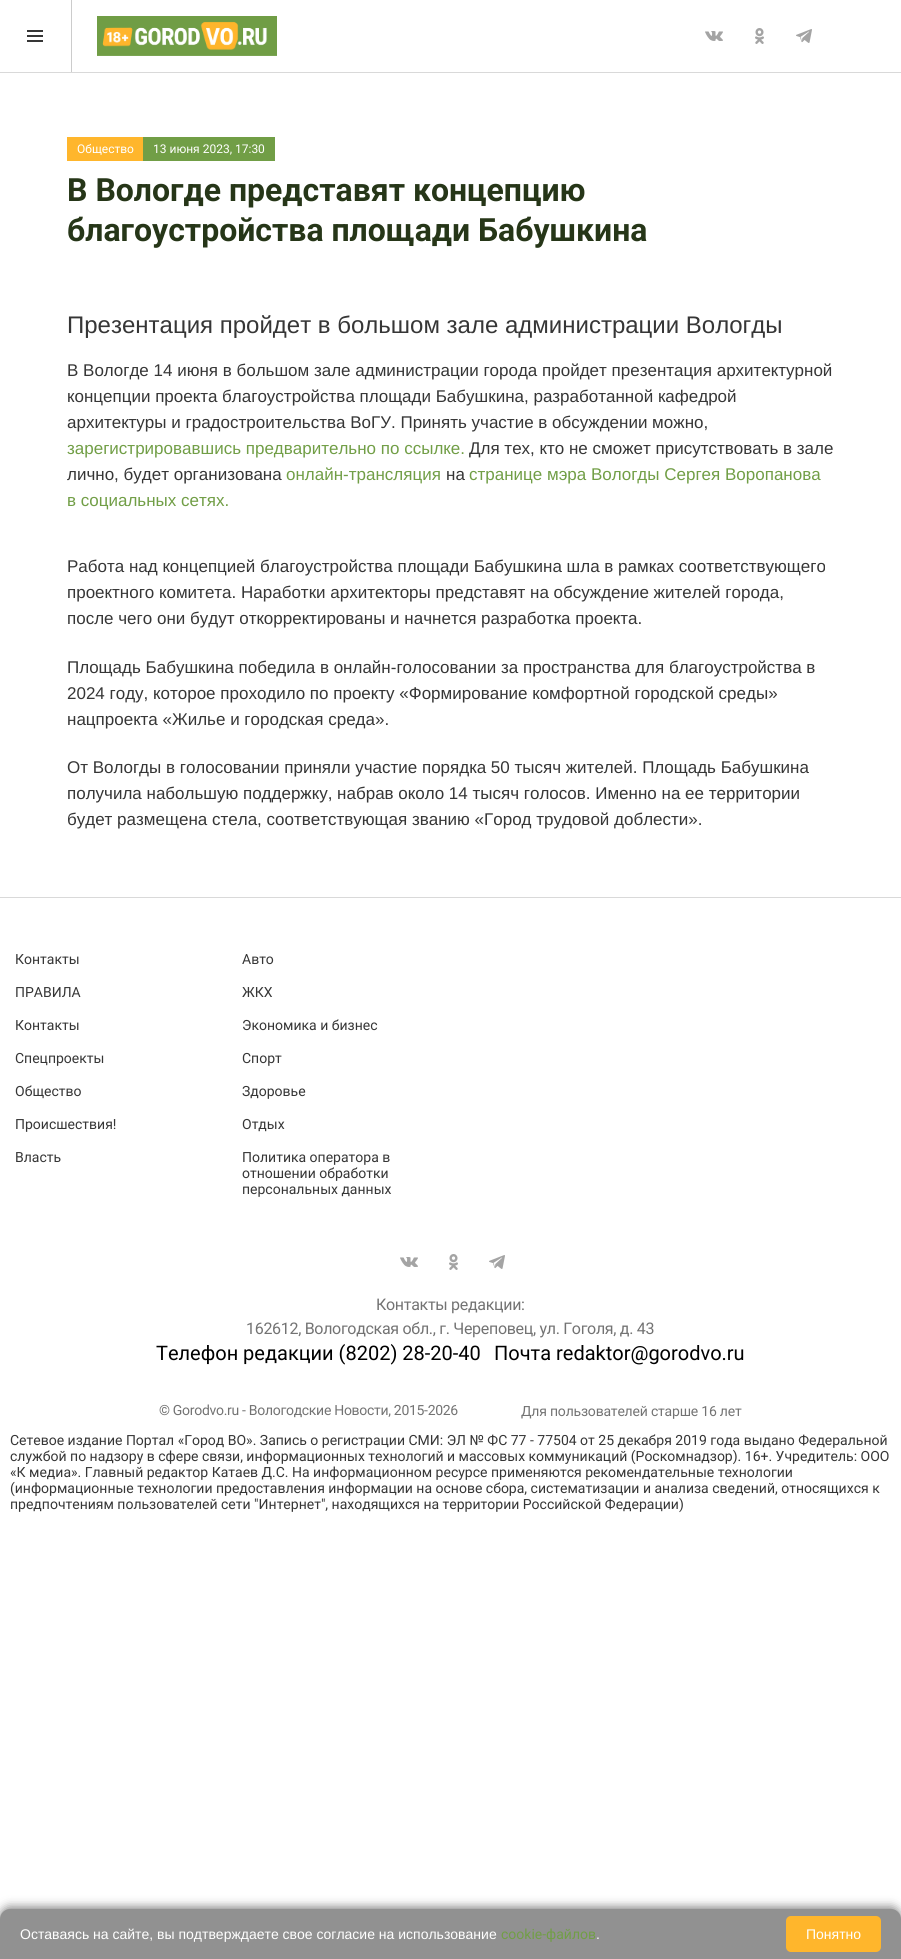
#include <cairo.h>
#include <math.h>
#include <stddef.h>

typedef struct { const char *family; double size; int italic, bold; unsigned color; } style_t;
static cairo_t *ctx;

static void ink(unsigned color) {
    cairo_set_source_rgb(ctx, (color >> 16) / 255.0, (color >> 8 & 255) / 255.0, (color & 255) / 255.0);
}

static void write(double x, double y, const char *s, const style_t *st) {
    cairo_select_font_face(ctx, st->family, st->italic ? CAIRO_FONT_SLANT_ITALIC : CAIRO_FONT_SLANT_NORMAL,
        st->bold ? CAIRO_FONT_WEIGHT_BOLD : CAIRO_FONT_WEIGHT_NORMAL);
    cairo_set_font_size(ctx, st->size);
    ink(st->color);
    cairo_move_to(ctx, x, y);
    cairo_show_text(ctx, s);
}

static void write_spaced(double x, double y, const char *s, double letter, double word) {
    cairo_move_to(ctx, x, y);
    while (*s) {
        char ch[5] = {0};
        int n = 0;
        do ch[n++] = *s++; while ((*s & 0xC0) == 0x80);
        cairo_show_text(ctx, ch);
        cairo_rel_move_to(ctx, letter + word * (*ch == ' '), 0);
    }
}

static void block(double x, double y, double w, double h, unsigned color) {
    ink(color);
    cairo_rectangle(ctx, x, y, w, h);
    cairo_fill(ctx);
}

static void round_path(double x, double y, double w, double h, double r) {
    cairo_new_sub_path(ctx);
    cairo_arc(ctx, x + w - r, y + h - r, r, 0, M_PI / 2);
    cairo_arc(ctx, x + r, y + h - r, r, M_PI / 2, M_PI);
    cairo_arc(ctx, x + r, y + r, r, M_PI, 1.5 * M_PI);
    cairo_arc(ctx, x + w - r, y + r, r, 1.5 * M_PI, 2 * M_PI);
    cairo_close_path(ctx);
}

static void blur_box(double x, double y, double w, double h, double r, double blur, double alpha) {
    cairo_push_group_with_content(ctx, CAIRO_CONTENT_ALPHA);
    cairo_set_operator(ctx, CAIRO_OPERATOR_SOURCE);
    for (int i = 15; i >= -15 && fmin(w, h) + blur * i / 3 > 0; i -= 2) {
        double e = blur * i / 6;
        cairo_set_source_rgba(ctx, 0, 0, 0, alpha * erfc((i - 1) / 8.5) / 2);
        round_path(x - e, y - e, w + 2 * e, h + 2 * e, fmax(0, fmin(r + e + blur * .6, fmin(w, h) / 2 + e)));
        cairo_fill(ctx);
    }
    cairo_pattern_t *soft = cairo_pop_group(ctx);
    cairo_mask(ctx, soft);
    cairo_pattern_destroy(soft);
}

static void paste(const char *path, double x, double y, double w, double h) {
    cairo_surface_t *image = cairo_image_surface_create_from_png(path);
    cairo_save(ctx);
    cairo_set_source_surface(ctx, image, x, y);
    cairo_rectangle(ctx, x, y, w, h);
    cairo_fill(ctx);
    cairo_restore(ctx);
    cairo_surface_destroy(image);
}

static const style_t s1 = {"Roboto", 12, 0, 0, 0xffffff};
static const style_t s2 = {"Roboto", 32, 0, 1, 0x263618};
static const style_t s3 = {"Liberation Sans", 24, 0, 0, 0x363636};
static const style_t s4 = {"Liberation Sans", 17, 0, 0, 0x363636};
static const style_t s5 = {"Liberation Sans", 17, 0, 0, 0x719e46};
static const style_t s6 = {"Roboto", 14, 0, 0, 0x363636};
static const style_t s7 = {"Roboto", 20, 0, 0, 0x000000};
static const style_t s8 = {"Liberation Sans", 14, 0, 0, 0xffffff};
static const style_t s9 = {"Roboto", 14, 0, 0, 0x719e46};

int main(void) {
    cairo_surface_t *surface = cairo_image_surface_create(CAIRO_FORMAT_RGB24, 901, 1959);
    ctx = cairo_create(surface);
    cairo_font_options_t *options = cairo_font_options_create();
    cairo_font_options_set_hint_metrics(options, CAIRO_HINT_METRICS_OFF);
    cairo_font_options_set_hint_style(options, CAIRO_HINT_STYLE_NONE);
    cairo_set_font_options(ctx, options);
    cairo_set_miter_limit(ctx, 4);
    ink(0xffffff);
    cairo_paint(ctx);
    block(0, 72, 901, 1, 0xd9d9d9);
    block(71, 0, 1, 72, 0xcccccc);
    block(27, 30, 16, 2, 0x363636);
    block(27, 35, 16, 2, 0x363636);
    block(27, 40, 16, 2, 0x363636);
    paste("pic1.png", 97, 16, 180, 40);
    paste("pic2.png", 705, 31, 18, 10);
    paste("pic3.png", 755, 28, 9, 16);
    paste("pic4.png", 796, 29, 16, 14);
    block(67, 137, 76, 24, 0xffb62c);
    write(77, 153, "Общество", &s1);
    block(143, 137, 132, 24, 0x719e46);
    write(153, 153, "13 июня 2023, 17:30", &s1);
    write(67, 201, "В Вологде представят концепцию", &s2);
    write(67, 241, "благоустройства площади Бабушкина", &s2);
    write(67, 333, "Презентация пройдет в большом зале администрации Вологды", &s3);
    write(67, 376, "В Вологде 14 июня в большом зале администрации города пройдет презентация архитектурной", &s4);
    write(67, 402, "концепции проекта благоустройства площади Бабушкина, разработанной кафедрой", &s4);
    write(67, 428, "архитектуры и градостроительства ВоГУ. Принять участие в обсуждении можно,", &s4);
    write(67, 454, "зарегистрировавшись предварительно по ссылке.", &s5);
    write(469, 454, "Для тех, кто не сможет присутствовать в зале", &s4);
    write(67, 480, "лично, будет организована", &s4);
    write(286, 480, "онлайн-трансляция", &s5);
    write(446, 480, "на", &s4);
    write(469, 480, "странице мэра Вологды Сергея Воропанова", &s5);
    write(67, 506, "в социальных сетях.", &s5);
    write(67, 572, "Работа над концепцией благоустройства площади Бабушкина шла в рамках соответствующего", &s4);
    write(67, 598, "проектного комитета. Наработки архитекторы представят на обсуждение жителей города,", &s4);
    write(67, 624, "после чего они будут откорректированы и начнется разработка проекта.", &s4);
    write(67, 673, "Площадь Бабушкина победила в онлайн-голосовании за пространства для благоустройства в", &s4);
    write(67, 699, "2024 году, которое проходило по проекту «Формирование комфортной городской среды»", &s4);
    write(67, 725, "нацпроекта «Жилье и городская среда».", &s4);
    write(67, 773, "От Вологды в голосовании приняли участие порядка 50 тысяч жителей. Площадь Бабушкина", &s4);
    write(67, 799, "получила набольшую поддержку, набрав около 14 тысяч голосов. Именно на ее территории", &s4);
    write(67, 825, "будет размещена стела, соответствующая званию «Город трудовой доблести».", &s4);
    block(0, 897, 901, 1, 0xd9d9d9);
    write(15, 964, "Контакты", &s6);
    write(15, 997, "ПРАВИЛА", &s6);
    write(15, 1030, "Контакты", &s6);
    write(15, 1063, "Спецпроекты", &s6);
    write(15, 1096, "Общество", &s6);
    write(15, 1129, "Происшествия!", &s6);
    write(15, 1162, "Власть", &s6);
    write(242, 964, "Авто", &s6);
    write(242, 997, "ЖКХ", &s6);
    write(242, 1030, "Экономика и бизнес", &s6);
    write(242, 1063, "Спорт", &s6);
    write(242, 1096, "Здоровье", &s6);
    write(242, 1129, "Отдых", &s6);
    write(242, 1162, "Политика оператора в", &s6);
    write(242, 1178, "отношении обработки", &s6);
    write(242, 1194, "персональных данных", &s6);
    paste("pic2.png", 400, 1257, 18, 10);
    paste("pic3.png", 449, 1254, 9, 16);
    paste("pic4.png", 489, 1255, 16, 14);
    cairo_set_font_size(ctx, 16);
    ink(0x737373);
    write_spaced(376, 1310, "Контакты редакции:", -0.3, 0);
    write_spaced(246, 1334, "162612, Вологодская обл., г. Череповец, ул. Гоголя, д. 43", -0.3, 0);
    write(156, 1360, "Телефон редакции (8202) 28-20-40", &s7);
    write(494, 1360, "Почта redaktor@gorodvo.ru", &s7);
    cairo_set_font_size(ctx, 14);
    ink(0x737373);
    write_spaced(159, 1415, "© Gorodvo.ru - Вологодские Новости, 2015-2026", -0.3, 0);
    write_spaced(521, 1416, "Для пользователей старше 16 лет", -0.2, 0);
    write(10, 1445, "Сетевое издание Портал «Город ВО». Запись о регистрации СМИ: ЭЛ № ФС 77 - 77504 от 25 декабря 2019 года выдано Федеральной", &s6);
    write(10, 1461, "службой по надзору в сфере связи, информационных технологий и массовых коммуникаций (Роскомнадзор). 16+. Учредитель: ООО", &s6);
    write(10, 1477, "«К медиа». Главный редактор Катаев Д.С. На информационном ресурсе применяются рекомендательные технологии", &s6);
    write(10, 1493, "(информационные технологии предоставления информации на основе сбора, систематизации и анализа сведений, относящихся к", &s6);
    write(10, 1509, "предпочтениям пользователей сети \"Интернет\", находящихся на территории Российской Федерации)", &s6);
    ink(0x000000);
    blur_box(0, 1907, 901, 50, 10, 5, 0.5);
    ink(0x919191);
    cairo_new_path(ctx);
    cairo_move_to(ctx, 10, 1909);
    cairo_line_to(ctx, 891, 1909);
    cairo_curve_to(ctx, 896.5, 1909, 901, 1913.5, 901, 1919);
    cairo_line_to(ctx, 901, 1959);
    cairo_line_to(ctx, 0, 1959);
    cairo_line_to(ctx, 0, 1919);
    cairo_curve_to(ctx, 0, 1913.5, 4.5, 1909, 10, 1909);
    cairo_close_path(ctx);
    cairo_fill(ctx);
    write(20, 1939, "Оставаясь на сайте, вы подтверждаете свое согласие на использование", &s8);
    write(501, 1939, "cookie-файлов", &s9);
    write(596, 1939, ".", &s8);
    ink(0xffb62c);
    round_path(786, 1916, 95, 36, 5);
    cairo_fill(ctx);
    write(806, 1939, "Понятно", &s8);
    cairo_surface_write_to_png(surface, "screenshot.png");
    cairo_font_options_destroy(options);
    cairo_destroy(ctx);
    cairo_surface_destroy(surface);
    return 0;
}
